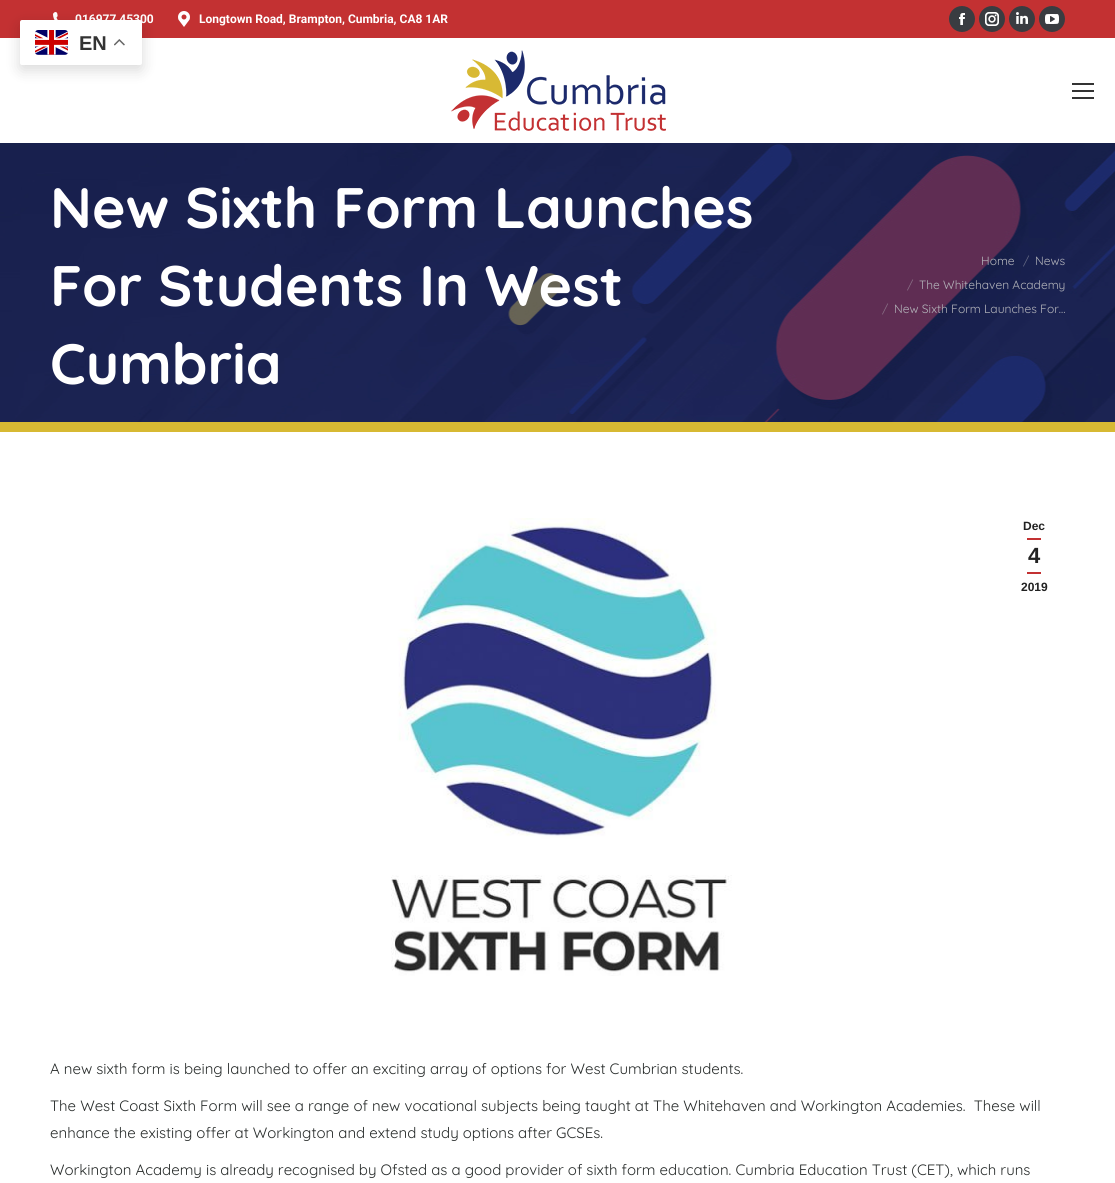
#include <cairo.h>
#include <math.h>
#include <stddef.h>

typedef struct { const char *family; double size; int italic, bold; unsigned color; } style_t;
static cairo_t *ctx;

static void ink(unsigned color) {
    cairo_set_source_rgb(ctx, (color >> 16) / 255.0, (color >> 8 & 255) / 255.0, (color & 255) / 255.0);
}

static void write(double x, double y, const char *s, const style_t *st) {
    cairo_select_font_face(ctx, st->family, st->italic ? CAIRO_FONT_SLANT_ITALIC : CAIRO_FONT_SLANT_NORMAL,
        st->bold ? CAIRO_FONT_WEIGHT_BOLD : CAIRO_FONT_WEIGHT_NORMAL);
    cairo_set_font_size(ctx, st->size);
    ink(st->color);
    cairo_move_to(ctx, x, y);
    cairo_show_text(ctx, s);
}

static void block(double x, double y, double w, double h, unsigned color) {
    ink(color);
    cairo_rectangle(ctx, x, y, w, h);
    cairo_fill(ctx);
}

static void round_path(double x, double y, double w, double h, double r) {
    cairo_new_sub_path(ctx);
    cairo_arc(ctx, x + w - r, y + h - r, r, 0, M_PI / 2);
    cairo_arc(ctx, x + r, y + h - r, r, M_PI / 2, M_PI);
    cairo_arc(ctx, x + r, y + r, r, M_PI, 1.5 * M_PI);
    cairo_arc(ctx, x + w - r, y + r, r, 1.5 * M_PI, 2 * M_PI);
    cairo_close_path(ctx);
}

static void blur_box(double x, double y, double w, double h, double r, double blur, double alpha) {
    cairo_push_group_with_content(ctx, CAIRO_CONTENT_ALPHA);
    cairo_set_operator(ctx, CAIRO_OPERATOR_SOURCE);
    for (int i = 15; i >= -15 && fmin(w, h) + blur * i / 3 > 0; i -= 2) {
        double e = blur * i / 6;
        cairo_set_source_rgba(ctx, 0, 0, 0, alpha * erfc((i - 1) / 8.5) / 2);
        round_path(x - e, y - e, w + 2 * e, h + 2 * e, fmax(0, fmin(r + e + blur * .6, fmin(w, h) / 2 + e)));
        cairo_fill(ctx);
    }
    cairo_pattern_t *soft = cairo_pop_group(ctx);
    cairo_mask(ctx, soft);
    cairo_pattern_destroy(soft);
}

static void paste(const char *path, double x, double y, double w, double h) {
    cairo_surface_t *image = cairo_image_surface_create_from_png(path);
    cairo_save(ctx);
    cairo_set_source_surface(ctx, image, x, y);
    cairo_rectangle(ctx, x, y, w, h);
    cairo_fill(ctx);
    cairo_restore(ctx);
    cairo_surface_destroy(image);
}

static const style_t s1 = {"Roboto", 12, 0, 1, 0xffffff};
static const style_t s2 = {"Quicksand", 57, 0, 1, 0xffffff};
static const style_t s3 = {"Quicksand", 12, 0, 0, 0xb4b5bb};
static const style_t s4 = {"Quicksand", 12, 0, 0, 0x666b85};
static const style_t s5 = {"Quicksand", 12, 0, 0, 0x8a7187};
static const style_t s6 = {"Liberation Sans", 12, 0, 1, 0x222222};
static const style_t s7 = {"Liberation Sans", 22, 0, 1, 0x222222};
static const style_t s8 = {"Quicksand", 15, 0, 0, 0x272b2a};
static const style_t s9 = {"Liberation Sans", 20, 0, 1, 0x333333};

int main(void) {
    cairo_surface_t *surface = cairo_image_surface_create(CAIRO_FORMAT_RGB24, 1115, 1183);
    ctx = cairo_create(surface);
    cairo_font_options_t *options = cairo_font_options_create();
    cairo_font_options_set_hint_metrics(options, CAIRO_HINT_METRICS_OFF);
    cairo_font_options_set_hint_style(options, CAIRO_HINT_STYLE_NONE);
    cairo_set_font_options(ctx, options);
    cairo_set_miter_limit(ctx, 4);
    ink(0xffffff);
    cairo_paint(ctx);
    block(0, 0, 1115, 38, 0xc33132);
    paste("pic1.png", 53, 12, 5, 8);
    write(75, 23, "016977 45300", &s1);
    paste("pic2.png", 178, 11, 12, 16);
    write(199, 23, "Longtown Road, Brampton, Cumbria, CA8 1AR", &s1);
    ink(0x393c41);
    cairo_new_path(ctx);
    cairo_arc(ctx, 962, 19, 13, 0, 2 * M_PI);
    cairo_fill(ctx);
    paste("pic3.png", 959, 13, 6, 12);
    cairo_arc(ctx, 992, 19, 13, 0, 2 * M_PI);
    cairo_fill(ctx);
    paste("pic4.png", 985, 12, 14, 14);
    cairo_arc(ctx, 1022, 19, 13, 0, 2 * M_PI);
    cairo_fill(ctx);
    paste("pic5.png", 1016, 12, 12, 12);
    cairo_arc(ctx, 1052, 19, 13, 0, 2 * M_PI);
    cairo_fill(ctx);
    paste("pic6.png", 1045, 14, 14, 10);
    paste("pic7.png", 451, 50, 215, 81);
    block(1072, 83, 22, 2, 0x333333);
    block(1072, 90, 22, 2, 0x333333);
    block(1072, 97, 22, 2, 0x333333);
    paste("pic8.png", 0, 143, 1115, 279);
    block(0, 422, 1115, 10, 0xd7b933);
    write(50, 228, "New Sixth Form Launches", &s2);
    write(50, 306, "For Students In West", &s2);
    write(50, 384, "Cumbria", &s2);
    write(981, 265, "Home", &s3);
    write(1023, 265, "/", &s4);
    write(1035, 265, "News", &s3);
    write(907, 289, "/", &s5);
    write(919, 289, "The Whitehaven Academy", &s3);
    write(882, 313, "/", &s5);
    write(894, 313, "New Sixth Form Launches For…", &s3);
    paste("pic9.png", 391, 518, 341, 458);
    write(1023, 530, "Dec", &s6);
    block(1027, 538, 14, 2, 0xc33132);
    write(1028, 563, "4", &s7);
    block(1027, 572, 14, 2, 0xc33132);
    write(1021, 591, "2019", &s6);
    write(50, 1074, "A new sixth form is being launched to offer an exciting array of options for West Cumbrian students.", &s8);
    write(50, 1111, "The West Coast Sixth Form will see a range of new vocational subjects being taught at The Whitehaven and Workington Academies.  These will", &s8);
    write(50, 1138, "enhance the existing offer at Workington and extend study options after GCSEs.", &s8);
    write(50, 1175, "Workington Academy is already recognised by Ofsted as a good provider of sixth form education. Cumbria Education Trust (CET), which runs", &s8);
    ink(0x000000);
    blur_box(20, 25, 122, 45, 2, 7.5, 0.15);
    ink(0xffffff);
    round_path(20, 20, 122, 45, 2);
    cairo_fill(ctx);
    paste("pic10.png", 35, 30, 33, 25);
    write(79, 50, "EN", &s9);
    paste("pic11.png", 114, 39, 11, 7);
    cairo_surface_write_to_png(surface, "screenshot.png");
    cairo_font_options_destroy(options);
    cairo_destroy(ctx);
    cairo_surface_destroy(surface);
    return 0;
}
